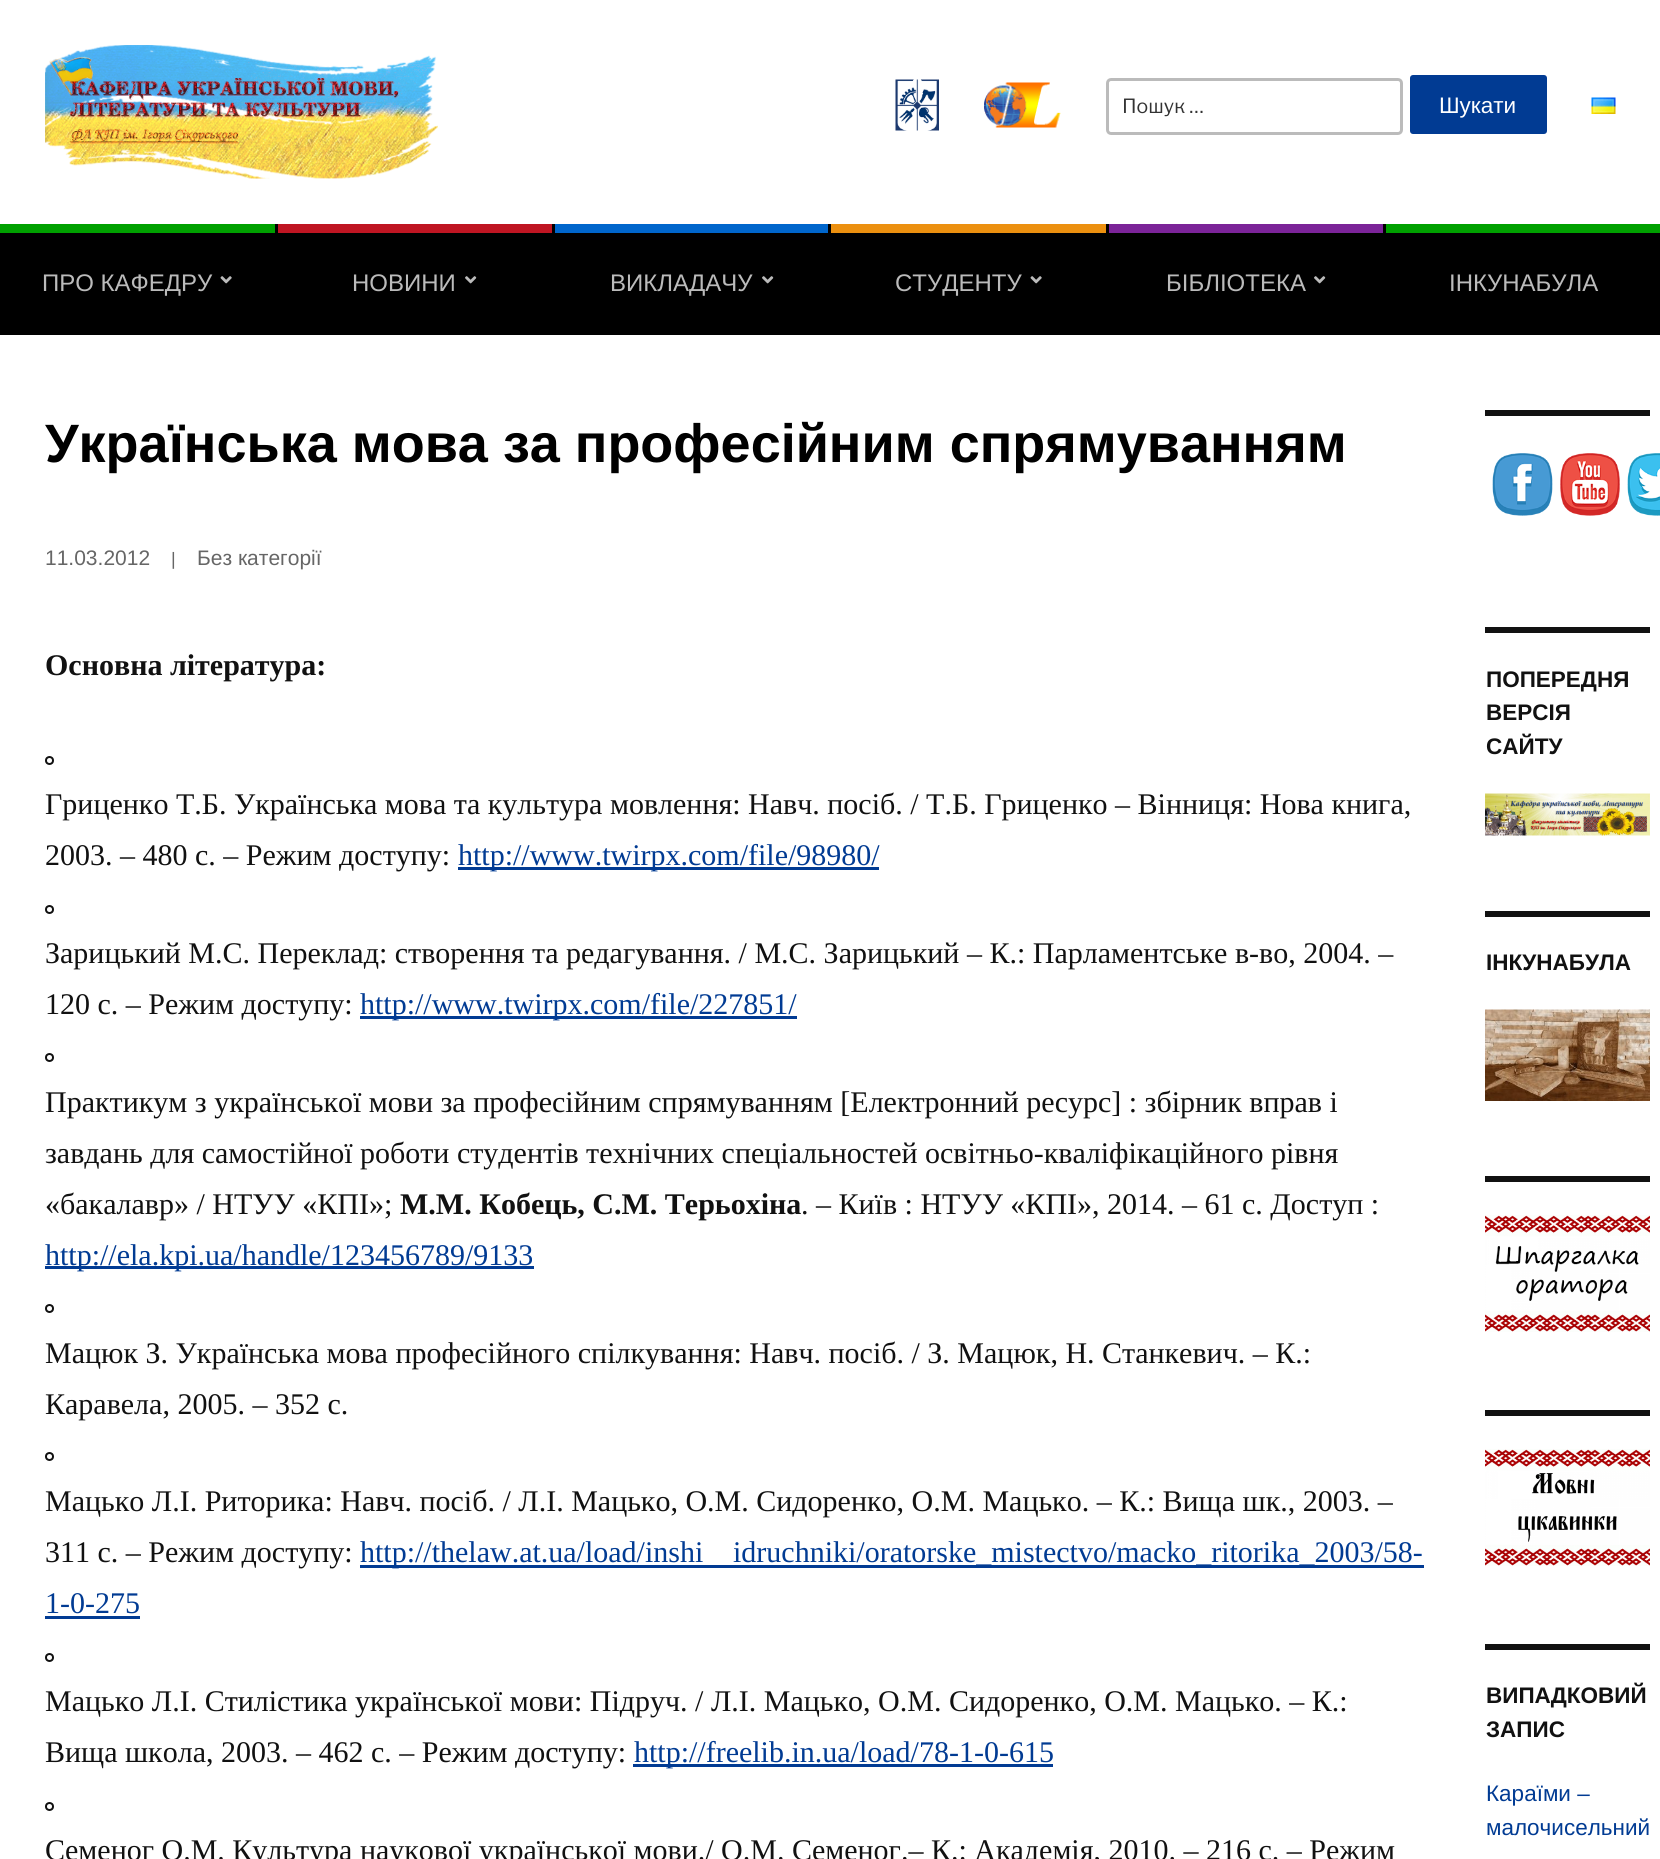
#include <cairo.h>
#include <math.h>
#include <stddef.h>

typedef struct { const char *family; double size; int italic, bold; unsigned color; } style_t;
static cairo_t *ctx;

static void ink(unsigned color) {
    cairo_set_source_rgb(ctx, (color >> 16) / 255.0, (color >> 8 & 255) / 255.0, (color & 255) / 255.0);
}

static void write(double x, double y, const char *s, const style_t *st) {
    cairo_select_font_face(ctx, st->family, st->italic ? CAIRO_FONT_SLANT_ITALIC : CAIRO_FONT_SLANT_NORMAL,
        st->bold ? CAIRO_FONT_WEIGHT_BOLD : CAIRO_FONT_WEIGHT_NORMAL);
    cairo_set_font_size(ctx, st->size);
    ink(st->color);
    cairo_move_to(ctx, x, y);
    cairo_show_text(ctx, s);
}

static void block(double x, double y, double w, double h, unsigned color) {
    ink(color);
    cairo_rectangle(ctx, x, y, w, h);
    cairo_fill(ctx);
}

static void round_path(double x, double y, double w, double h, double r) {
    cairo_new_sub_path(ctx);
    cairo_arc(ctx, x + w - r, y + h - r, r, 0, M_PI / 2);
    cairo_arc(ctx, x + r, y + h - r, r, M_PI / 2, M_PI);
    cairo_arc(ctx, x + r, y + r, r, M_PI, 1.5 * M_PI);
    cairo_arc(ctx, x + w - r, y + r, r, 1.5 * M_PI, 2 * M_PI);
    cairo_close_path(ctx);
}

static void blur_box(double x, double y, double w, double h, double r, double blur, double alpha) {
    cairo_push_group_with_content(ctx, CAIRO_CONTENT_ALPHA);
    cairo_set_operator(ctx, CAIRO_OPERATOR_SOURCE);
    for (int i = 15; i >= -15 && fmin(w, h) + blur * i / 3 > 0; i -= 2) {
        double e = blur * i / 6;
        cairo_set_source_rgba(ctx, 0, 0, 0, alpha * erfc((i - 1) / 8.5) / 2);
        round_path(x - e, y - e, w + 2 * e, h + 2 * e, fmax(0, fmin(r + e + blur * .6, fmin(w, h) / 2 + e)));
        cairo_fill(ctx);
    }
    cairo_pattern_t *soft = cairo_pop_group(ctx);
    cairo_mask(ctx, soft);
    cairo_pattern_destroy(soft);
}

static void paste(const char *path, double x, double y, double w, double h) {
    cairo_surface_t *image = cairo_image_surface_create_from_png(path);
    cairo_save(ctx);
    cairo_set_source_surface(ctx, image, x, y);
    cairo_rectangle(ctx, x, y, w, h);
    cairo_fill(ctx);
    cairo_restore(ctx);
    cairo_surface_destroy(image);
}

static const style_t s1 = {"Libre Franklin", 19.5, 0, 0, 0x333333};
static const style_t s2 = {"Liberation Sans", 22.5, 0, 0, 0xffffff};
static const style_t s3 = {"Liberation Sans", 24, 0, 0, 0xbbbbbb};
static const style_t s4 = {"Liberation Sans", 54, 0, 1, 0x000000};
static const style_t s5 = {"Liberation Sans", 21, 0, 0, 0x666666};
static const style_t s6 = {"Liberation Sans", 18, 0, 0, 0x666666};
static const style_t s7 = {"Liberation Serif", 30, 0, 1, 0x111111};
static const style_t s8 = {"Liberation Serif", 30, 0, 0, 0x111111};
static const style_t s9 = {"Liberation Serif", 30, 0, 0, 0x013b93};
static const style_t s10 = {"Liberation Sans", 22.5, 0, 1, 0x111111};
static const style_t s11 = {"Liberation Sans", 22.5, 0, 0, 0x013b93};

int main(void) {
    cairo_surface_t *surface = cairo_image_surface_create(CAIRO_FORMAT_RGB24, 1660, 1859);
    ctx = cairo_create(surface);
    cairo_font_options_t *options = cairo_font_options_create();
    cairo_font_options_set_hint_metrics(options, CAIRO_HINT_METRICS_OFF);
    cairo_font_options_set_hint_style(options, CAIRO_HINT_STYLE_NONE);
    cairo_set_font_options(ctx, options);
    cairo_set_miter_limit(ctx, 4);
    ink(0xffffff);
    cairo_paint(ctx);
    cairo_save(ctx);
    cairo_set_fill_rule(ctx, CAIRO_FILL_RULE_EVEN_ODD);
    cairo_new_path(ctx);
    cairo_move_to(ctx, 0, 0);
    cairo_line_to(ctx, 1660, 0);
    cairo_line_to(ctx, 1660, 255);
    cairo_line_to(ctx, 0, 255);
    cairo_close_path(ctx);
    cairo_move_to(ctx, 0, 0);
    cairo_line_to(ctx, 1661, 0);
    cairo_line_to(ctx, 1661, 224);
    cairo_line_to(ctx, 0, 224);
    cairo_close_path(ctx);
    cairo_clip(ctx);
    ink(0x000000);
    blur_box(0, 8, 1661, 223, 0, 7.5, 0.1);
    cairo_restore(ctx);
    paste("pic1.png", 45, 45, 393, 134);
    paste("pic2.png", 895, 79, 44, 52);
    paste("pic3.png", 984, 82, 77, 46);
    round_path(1107.5, 79.5, 294, 54, 3.5);
    ink(0xbbbbbb);
    cairo_set_line_width(ctx, 3);
    cairo_stroke(ctx);
    write(1122, 113, "Пошук …", &s1);
    ink(0x013b93);
    round_path(1410, 75, 137, 59, 3);
    cairo_fill(ctx);
    write(1439, 113, "Шукати", &s2);
    paste("pic4.png", 1591, 97, 25, 17);
    block(275, 224, 3, 111, 0x000000);
    block(0, 233, 275, 102, 0x000000);
    block(0, 224, 275, 9, 0x00a000);
    write(42, 291, "ПРО КАФЕДРУ", &s3);
    paste("pic5.png", 220, 276, 12, 8);
    block(552, 224, 3, 111, 0x000000);
    block(278, 233, 274, 102, 0x000000);
    block(278, 224, 274, 9, 0xbf1522);
    write(352, 291, "НОВИНИ", &s3);
    paste("pic6.png", 465, 276, 12, 8);
    block(828, 224, 3, 111, 0x000000);
    block(555, 233, 273, 102, 0x000000);
    block(555, 224, 273, 9, 0x0066cc);
    write(610, 291, "ВИКЛАДАЧУ", &s3);
    paste("pic6.png", 762, 276, 12, 8);
    block(1106, 224, 3, 111, 0x000000);
    block(831, 233, 275, 102, 0x000000);
    block(831, 224, 275, 9, 0xec900f);
    write(895, 291, "СТУДЕНТУ", &s3);
    paste("pic5.png", 1030, 276, 12, 8);
    block(1383, 224, 3, 111, 0x000000);
    block(1109, 233, 274, 102, 0x000000);
    block(1109, 224, 274, 9, 0x7b2398);
    write(1166, 291, "БІБЛІОТЕКА", &s3);
    paste("pic6.png", 1314, 276, 12, 8);
    block(1386, 233, 274, 102, 0x000000);
    block(1386, 224, 274, 9, 0x00a000);
    write(1449, 291, "ІНКУНАБУЛА", &s3);
    write(45, 462, "Українська мова за професійним спрямуванням", &s4);
    write(45, 565, "11.03.2012", &s5);
    write(171, 565, "|", &s6);
    write(197, 565, "Без категорії", &s5);
    write(45, 675, "Основна література:", &s7);
    cairo_new_path(ctx);
    cairo_arc(ctx, 49.5, 760.5, 3.5, 0, 2 * M_PI);
    cairo_set_line_width(ctx, 2);
    cairo_stroke(ctx);
    write(45, 814, "Гриценко Т.Б. Українська мова та культура мовлення: Навч. посіб. / Т.Б. Гриценко – Вінниця: Нова книга,", &s8);
    write(45, 865, "2003. – 480 с. – Режим доступу:", &s8);
    block(458, 867, 421, 3, 0x013b93);
    write(458, 865, "http://www.twirpx.com/file/98980/", &s9);
    cairo_new_path(ctx);
    cairo_arc(ctx, 49.5, 909.5, 3.5, 0, 2 * M_PI);
    ink(0x111111);
    cairo_stroke(ctx);
    write(45, 963, "Зарицький М.С. Переклад: створення та редагування. / М.С. Зарицький – К.: Парламентське в-во, 2004. –", &s8);
    write(45, 1014, "120 с. – Режим доступу:", &s8);
    block(360, 1016, 437, 3, 0x013b93);
    write(360, 1014, "http://www.twirpx.com/file/227851/", &s9);
    cairo_new_path(ctx);
    cairo_arc(ctx, 49.5, 1057.5, 3.5, 0, 2 * M_PI);
    ink(0x111111);
    cairo_stroke(ctx);
    write(45, 1112, "Практикум з української мови за професійним спрямуванням [Електронний ресурс] : збірник вправ і", &s8);
    write(45, 1163, "завдань для самостійної роботи студентів технічних спеціальностей освітньо-кваліфікаційного рівня", &s8);
    write(45, 1214, "«бакалавр» / НТУУ «КПІ»;", &s8);
    write(400, 1214, "М.М. Кобець, С.М. Терьохіна", &s7);
    write(801, 1214, ". – Київ : НТУУ «КПІ», 2014. – 61 с. Доступ :", &s8);
    block(45, 1266, 489, 3, 0x013b93);
    write(45, 1265, "http://ela.kpi.ua/handle/123456789/9133", &s9);
    cairo_new_path(ctx);
    cairo_arc(ctx, 49.5, 1308.5, 3.5, 0, 2 * M_PI);
    ink(0x111111);
    cairo_stroke(ctx);
    write(45, 1363, "Мацюк З. Українська мова професійного спілкування: Навч. посіб. / З. Мацюк, Н. Станкевич. – К.:", &s8);
    write(45, 1414, "Каравела, 2005. – 352 с.", &s8);
    cairo_new_path(ctx);
    cairo_arc(ctx, 49.5, 1456.5, 3.5, 0, 2 * M_PI);
    cairo_stroke(ctx);
    write(45, 1511, "Мацько Л.І. Риторика: Навч. посіб. / Л.І. Мацько, О.М. Сидоренко, О.М. Мацько. – К.: Вища шк., 2003. –", &s8);
    write(45, 1562, "311 с. – Режим доступу:", &s8);
    block(360, 1565, 1064, 3, 0x013b93);
    write(360, 1562, "http://thelaw.at.ua/load/inshi", &s9);
    write(733, 1562, "idruchniki/oratorske_mistectvo/macko_ritorika_2003/58-", &s9);
    write(45, 1613, "1-0-275", &s9);
    block(45, 1616, 95, 3, 0x013b93);
    cairo_new_path(ctx);
    cairo_arc(ctx, 49.5, 1657.5, 3.5, 0, 2 * M_PI);
    ink(0x111111);
    cairo_stroke(ctx);
    write(45, 1711, "Мацько Л.І. Стилістика української мови: Підруч. / Л.І. Мацько, О.М. Сидоренко, О.М. Мацько. – К.:", &s8);
    write(45, 1762, "Вища школа, 2003. – 462 с. – Режим доступу:", &s8);
    block(633, 1764, 420, 3, 0x013b93);
    write(634, 1762, "http://freelib.in.ua/load/78-1-0-615", &s9);
    cairo_new_path(ctx);
    cairo_arc(ctx, 49.5, 1806.5, 3.5, 0, 2 * M_PI);
    ink(0x111111);
    cairo_stroke(ctx);
    write(45, 1860, "Семеног О.М. Культура наукової української мови./ О.М. Семеног.– К.: Академія, 2010. – 216 с. – Режим", &s8);
    block(1485, 410, 165, 6, 0x111111);
    paste("pic7.png", 1492, 453, 61, 63);
    paste("pic8.png", 1560, 453, 60, 63);
    paste("pic9.png", 1627, 453, 33, 63);
    block(1485, 627, 165, 6, 0x111111);
    write(1486, 687, "ПОПЕРЕДНЯ", &s10);
    write(1486, 720, "ВЕРСІЯ", &s10);
    write(1486, 754, "САЙТУ", &s10);
    paste("pic10.png", 1485, 793, 165, 43);
    block(1485, 911, 165, 6, 0x111111);
    write(1486, 970, "ІНКУНАБУЛА", &s10);
    paste("pic11.png", 1485, 1009, 165, 92);
    block(1485, 1176, 165, 6, 0x111111);
    paste("pic12.png", 1485, 1215, 165, 117);
    block(1485, 1410, 165, 6, 0x111111);
    paste("pic13.png", 1485, 1449, 165, 117);
    block(1485, 1644, 165, 6, 0x111111);
    write(1486, 1703, "ВИПАДКОВИЙ", &s10);
    write(1486, 1737, "ЗАПИС", &s10);
    write(1486, 1801, "Караїми –", &s11);
    write(1486, 1835, "малочисельний", &s11);
    cairo_surface_write_to_png(surface, "screenshot.png");
    cairo_font_options_destroy(options);
    cairo_destroy(ctx);
    cairo_surface_destroy(surface);
    return 0;
}
